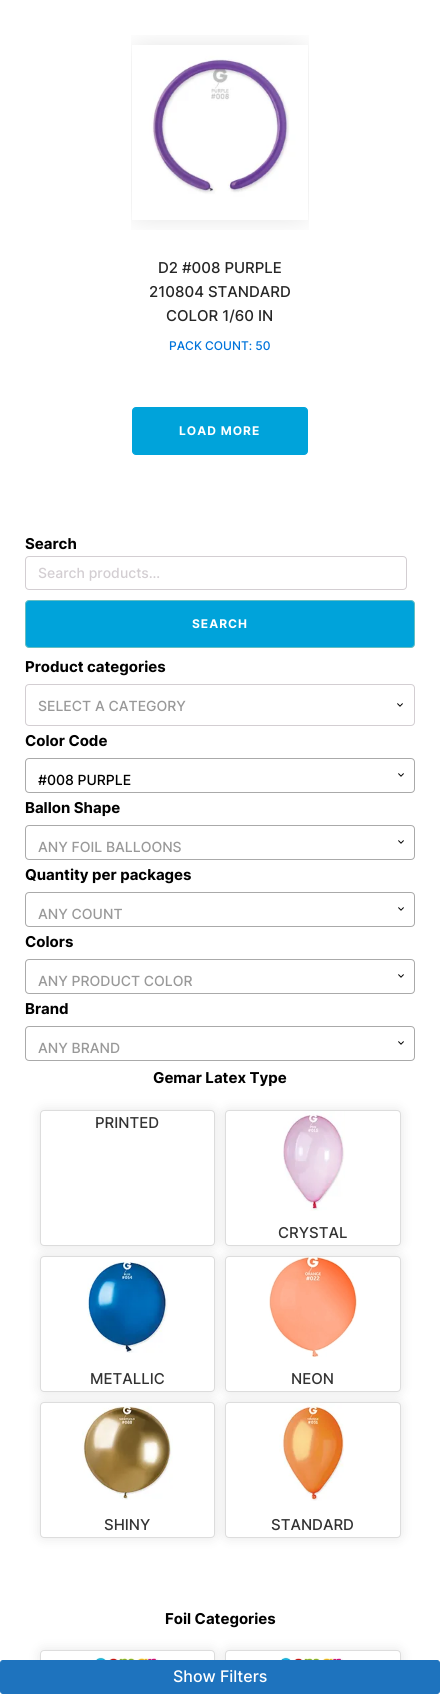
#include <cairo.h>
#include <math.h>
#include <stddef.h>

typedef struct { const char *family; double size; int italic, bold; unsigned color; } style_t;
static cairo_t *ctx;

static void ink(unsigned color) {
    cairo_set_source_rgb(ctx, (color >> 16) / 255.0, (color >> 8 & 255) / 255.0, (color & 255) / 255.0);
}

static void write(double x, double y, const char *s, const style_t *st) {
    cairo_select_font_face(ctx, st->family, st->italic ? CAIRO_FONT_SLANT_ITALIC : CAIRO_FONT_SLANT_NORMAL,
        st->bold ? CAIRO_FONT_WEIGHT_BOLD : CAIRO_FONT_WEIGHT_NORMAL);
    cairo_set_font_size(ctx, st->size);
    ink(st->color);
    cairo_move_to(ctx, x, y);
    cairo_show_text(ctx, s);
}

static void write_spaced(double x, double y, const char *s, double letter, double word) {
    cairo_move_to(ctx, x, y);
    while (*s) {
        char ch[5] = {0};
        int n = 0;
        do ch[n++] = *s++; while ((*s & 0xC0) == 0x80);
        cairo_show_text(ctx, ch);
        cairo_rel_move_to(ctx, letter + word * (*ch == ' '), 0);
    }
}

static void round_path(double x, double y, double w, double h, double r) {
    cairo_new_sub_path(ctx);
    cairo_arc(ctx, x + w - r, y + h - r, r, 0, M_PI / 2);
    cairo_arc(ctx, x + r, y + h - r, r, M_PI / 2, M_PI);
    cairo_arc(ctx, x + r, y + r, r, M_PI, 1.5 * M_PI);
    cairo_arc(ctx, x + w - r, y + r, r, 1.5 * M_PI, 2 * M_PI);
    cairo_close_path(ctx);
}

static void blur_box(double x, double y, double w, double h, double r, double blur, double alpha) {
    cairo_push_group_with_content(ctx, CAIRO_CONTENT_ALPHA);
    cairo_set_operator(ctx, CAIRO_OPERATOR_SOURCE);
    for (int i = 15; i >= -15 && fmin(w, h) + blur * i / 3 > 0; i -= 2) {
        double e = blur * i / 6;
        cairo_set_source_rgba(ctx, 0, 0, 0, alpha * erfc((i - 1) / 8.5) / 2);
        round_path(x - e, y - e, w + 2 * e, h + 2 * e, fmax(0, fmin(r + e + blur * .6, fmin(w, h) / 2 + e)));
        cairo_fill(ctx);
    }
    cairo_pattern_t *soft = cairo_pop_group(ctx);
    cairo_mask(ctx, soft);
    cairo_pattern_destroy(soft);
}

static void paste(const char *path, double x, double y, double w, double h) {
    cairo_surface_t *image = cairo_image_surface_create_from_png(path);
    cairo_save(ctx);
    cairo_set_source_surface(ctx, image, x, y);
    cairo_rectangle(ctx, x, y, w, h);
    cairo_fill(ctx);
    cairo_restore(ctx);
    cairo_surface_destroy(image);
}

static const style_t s1 = {"Inter Medium", 15, 0, 0, 0x262626};
static const style_t s2 = {"Inter Medium", 12, 0, 0, 0x0074db};
static const style_t s3 = {"Inter", 15, 0, 1, 0x000000};
static const style_t s4 = {"Inter Medium", 14, 0, 0, 0xd3ced2};
static const style_t s5 = {"Inter Medium", 14, 0, 0, 0x999999};
static const style_t s6 = {"Inter Medium", 14, 0, 0, 0x000000};
static const style_t s7 = {"Inter Medium", 15, 0, 0, 0x333333};
static const style_t s8 = {"Inter Medium", 16, 0, 0, 0xffffff};

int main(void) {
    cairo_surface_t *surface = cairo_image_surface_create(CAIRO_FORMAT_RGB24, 440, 1694);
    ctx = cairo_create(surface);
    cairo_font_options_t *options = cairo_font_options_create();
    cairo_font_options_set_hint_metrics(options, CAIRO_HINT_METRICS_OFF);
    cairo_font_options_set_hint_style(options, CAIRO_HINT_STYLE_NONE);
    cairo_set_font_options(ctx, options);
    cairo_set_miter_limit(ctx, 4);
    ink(0xffffff);
    cairo_paint(ctx);
    paste("pic1.png", 131, 35, 178, 195);
    write(158, 273, "D2 #008 PURPLE", &s1);
    write(149, 297, "210804 STANDARD", &s1);
    write(166, 321, "COLOR 1/60 IN", &s1);
    write(169, 350, "PACK COUNT: 50", &s2);
    ink(0x00a3da);
    round_path(132.5, 407.5, 175, 47, 3.5);
    cairo_fill_preserve(ctx);
    cairo_set_line_width(ctx, 1);
    cairo_stroke(ctx);
    cairo_select_font_face(ctx, "Inter", CAIRO_FONT_SLANT_NORMAL, CAIRO_FONT_WEIGHT_BOLD);
    ink(0xffffff);
    write_spaced(179, 435, "LOAD MORE", 1, 0);
    write(25, 549, "Search", &s3);
    round_path(25.5, 556.5, 381, 33, 3.5);
    ink(0xd3ced2);
    cairo_stroke(ctx);
    write(38, 578, "Search products…", &s4);
    ink(0x00a3da);
    round_path(25.5, 600.5, 389, 47, 3.5);
    cairo_fill_preserve(ctx);
    ink(0x65bec2);
    cairo_stroke(ctx);
    cairo_select_font_face(ctx, "Inter", CAIRO_FONT_SLANT_NORMAL, CAIRO_FONT_WEIGHT_BOLD);
    cairo_set_font_size(ctx, 12);
    ink(0xffffff);
    write_spaced(192, 628, "SEARCH", 1, 0);
    write(25, 672, "Product categories", &s3);
    paste("pic2.png", 397, 703, 6, 4);
    round_path(25.5, 684.5, 389, 41, 3.5);
    ink(0xd3ced2);
    cairo_stroke(ctx);
    write(38, 711, "SELECT A CATEGORY", &s5);
    write(25, 746, "Color Code", &s3);
    round_path(25.5, 758.5, 389, 34, 3.5);
    ink(0xaaaaaa);
    cairo_stroke(ctx);
    write(38, 785, "#008 PURPLE", &s6);
    paste("pic2.png", 398, 773, 6, 4);
    write(25, 813, "Ballon Shape", &s3);
    round_path(25.5, 825.5, 389, 34, 3.5);
    ink(0xaaaaaa);
    cairo_stroke(ctx);
    write(38, 852, "ANY FOIL BALLOONS", &s5);
    paste("pic2.png", 398, 840, 6, 4);
    write(25, 880, "Quantity per packages", &s3);
    round_path(25.5, 892.5, 389, 34, 3.5);
    ink(0xaaaaaa);
    cairo_stroke(ctx);
    write(38, 919, "ANY COUNT", &s5);
    paste("pic2.png", 398, 907, 6, 4);
    write(25, 947, "Colors", &s3);
    round_path(25.5, 959.5, 389, 34, 3.5);
    ink(0xaaaaaa);
    cairo_stroke(ctx);
    write(38, 986, "ANY PRODUCT COLOR", &s5);
    paste("pic2.png", 398, 974, 6, 4);
    write(25, 1014, "Brand", &s3);
    round_path(25.5, 1026.5, 389, 34, 3.5);
    ink(0xaaaaaa);
    cairo_stroke(ctx);
    write(38, 1053, "ANY BRAND", &s5);
    paste("pic2.png", 398, 1041, 6, 4);
    write(153, 1083, "Gemar Latex Type", &s3);
    ink(0x000000);
    blur_box(40, 1110, 175, 136, 4, 6, 0.1);
    ink(0xffffff);
    round_path(40.5, 1110.5, 174, 135, 3.5);
    cairo_fill_preserve(ctx);
    ink(0xdddddd);
    cairo_stroke(ctx);
    write(95, 1128, "PRINTED", &s7);
    ink(0x000000);
    blur_box(225, 1110, 176, 136, 4, 6, 0.1);
    ink(0xffffff);
    round_path(225.5, 1110.5, 175, 135, 3.5);
    cairo_fill_preserve(ctx);
    ink(0xdddddd);
    cairo_stroke(ctx);
    paste("pic3.png", 283, 1111, 62, 100);
    write(278, 1238, "CRYSTAL", &s7);
    ink(0x000000);
    blur_box(40, 1256, 175, 136, 4, 6, 0.1);
    ink(0xffffff);
    round_path(40.5, 1256.5, 174, 135, 3.5);
    cairo_fill_preserve(ctx);
    ink(0xdddddd);
    cairo_stroke(ctx);
    paste("pic4.png", 87, 1261, 81, 92);
    write(90, 1384, "METALLIC", &s7);
    ink(0x000000);
    blur_box(225, 1256, 176, 136, 4, 6, 0.1);
    ink(0xffffff);
    round_path(225.5, 1256.5, 175, 135, 3.5);
    cairo_fill_preserve(ctx);
    ink(0xdddddd);
    cairo_stroke(ctx);
    paste("pic5.png", 269, 1257, 88, 100);
    write(291, 1384, "NEON", &s7);
    ink(0x000000);
    blur_box(40, 1402, 175, 136, 4, 6, 0.1);
    ink(0xffffff);
    round_path(40.5, 1402.5, 174, 135, 3.5);
    cairo_fill_preserve(ctx);
    ink(0xdddddd);
    cairo_stroke(ctx);
    paste("pic6.png", 82, 1406, 91, 94);
    write(104, 1530, "SHINY", &s7);
    ink(0x000000);
    blur_box(225, 1402, 176, 136, 4, 6, 0.1);
    ink(0xffffff);
    round_path(225.5, 1402.5, 175, 135, 3.5);
    cairo_fill_preserve(ctx);
    ink(0xdddddd);
    cairo_stroke(ctx);
    paste("pic7.png", 279, 1403, 65, 98);
    write(271, 1530, "STANDARD", &s7);
    write(165, 1624, "Foil Categories", &s3);
    ink(0x000000);
    blur_box(40, 1650, 175, 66, 4, 6, 0.1);
    ink(0xffffff);
    round_path(40.5, 1650.5, 174, 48, 3.5);
    cairo_fill_preserve(ctx);
    ink(0xdddddd);
    cairo_stroke(ctx);
    paste("pic8.png", 47, 1657, 161, 3);
    ink(0x000000);
    blur_box(225, 1650, 176, 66, 4, 6, 0.1);
    ink(0xffffff);
    round_path(225.5, 1650.5, 175, 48, 3.5);
    cairo_fill_preserve(ctx);
    ink(0xdddddd);
    cairo_stroke(ctx);
    paste("pic9.png", 232, 1657, 161, 3);
    ink(0x1e73be);
    round_path(0.5, 1660.5, 439, 33, 2.5);
    cairo_fill_preserve(ctx);
    cairo_stroke(ctx);
    write(173, 1682, "Show Filters", &s8);
    cairo_surface_write_to_png(surface, "screenshot.png");
    cairo_font_options_destroy(options);
    cairo_destroy(ctx);
    cairo_surface_destroy(surface);
    return 0;
}
